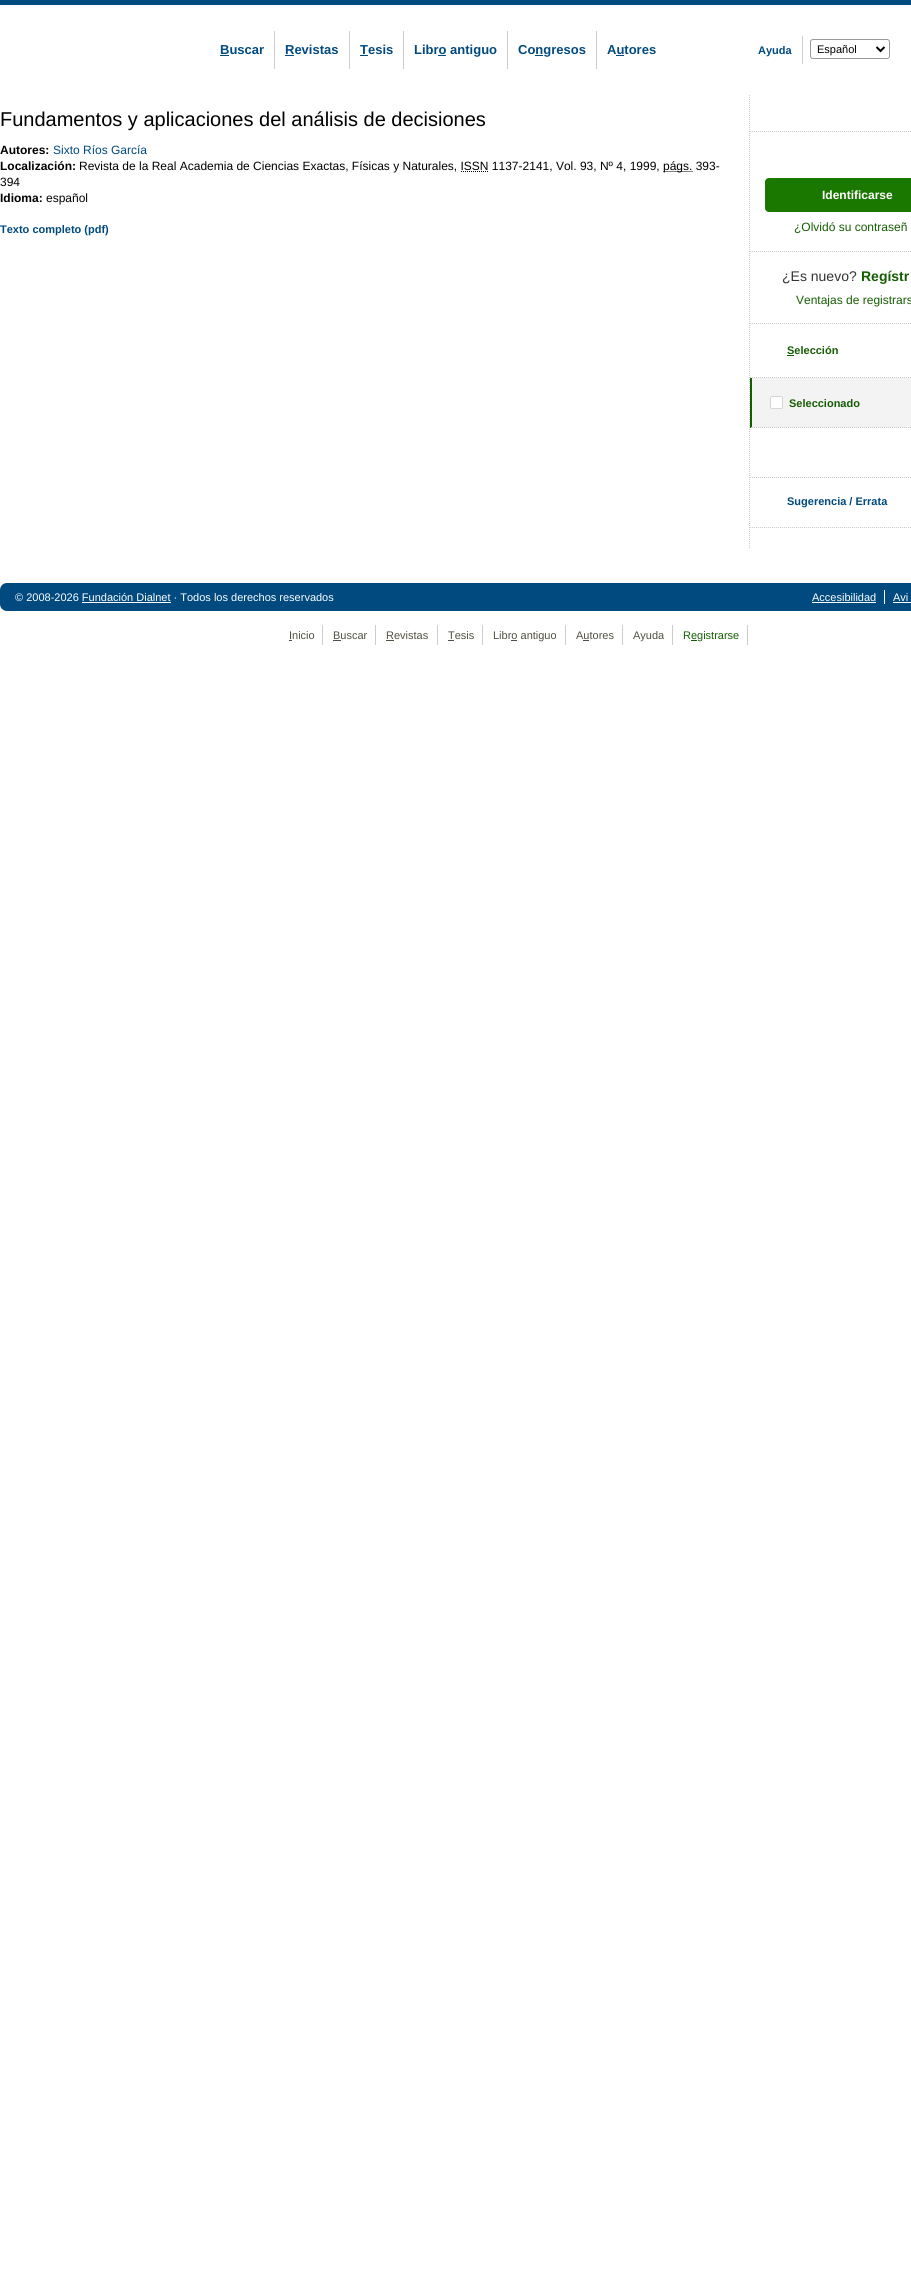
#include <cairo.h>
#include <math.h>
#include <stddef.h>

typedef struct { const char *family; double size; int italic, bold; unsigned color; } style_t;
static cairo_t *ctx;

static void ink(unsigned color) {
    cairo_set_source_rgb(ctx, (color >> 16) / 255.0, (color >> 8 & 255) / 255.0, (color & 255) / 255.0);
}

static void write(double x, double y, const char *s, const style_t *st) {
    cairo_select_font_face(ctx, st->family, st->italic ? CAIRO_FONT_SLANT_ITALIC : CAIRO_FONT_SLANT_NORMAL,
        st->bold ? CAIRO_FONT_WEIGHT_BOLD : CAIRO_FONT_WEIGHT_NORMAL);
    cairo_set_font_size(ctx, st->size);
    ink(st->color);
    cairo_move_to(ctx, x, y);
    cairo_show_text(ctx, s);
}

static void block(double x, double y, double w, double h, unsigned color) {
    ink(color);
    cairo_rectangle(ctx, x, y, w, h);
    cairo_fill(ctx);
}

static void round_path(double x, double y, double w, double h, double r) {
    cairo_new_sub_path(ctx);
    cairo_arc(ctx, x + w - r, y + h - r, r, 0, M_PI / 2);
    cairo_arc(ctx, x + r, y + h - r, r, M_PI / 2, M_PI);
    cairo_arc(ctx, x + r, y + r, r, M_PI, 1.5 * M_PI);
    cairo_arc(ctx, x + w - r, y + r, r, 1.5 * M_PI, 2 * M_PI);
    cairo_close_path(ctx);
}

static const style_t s1 = {"Liberation Sans", 13, 0, 1, 0x004a7f};
static const style_t s2 = {"Liberation Sans", 11, 0, 1, 0x004a7f};
static const style_t s3 = {"Liberation Sans", 11, 0, 0, 0x000000};
static const style_t s4 = {"Liberation Sans", 20, 0, 0, 0x000000};
static const style_t s5 = {"Liberation Sans", 12, 0, 1, 0x000000};
static const style_t s6 = {"Liberation Sans", 12, 0, 0, 0x004a7f};
static const style_t s7 = {"Liberation Sans", 12, 0, 0, 0x000000};
static const style_t s8 = {"Liberation Sans", 12, 0, 1, 0xffffff};
static const style_t s9 = {"Liberation Sans", 12, 0, 0, 0x155d02};
static const style_t s10 = {"Liberation Sans", 14, 0, 0, 0x333333};
static const style_t s11 = {"Liberation Sans", 14, 0, 1, 0x155d02};
static const style_t s12 = {"Liberation Sans", 11, 0, 1, 0x155d02};
static const style_t s13 = {"Liberation Sans", 11, 0, 0, 0xffffff};
static const style_t s14 = {"Liberation Sans", 11, 0, 0, 0x504f41};
static const style_t s15 = {"Liberation Sans", 11, 0, 0, 0x155d02};

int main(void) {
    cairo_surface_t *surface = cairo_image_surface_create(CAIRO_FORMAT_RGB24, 911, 2284);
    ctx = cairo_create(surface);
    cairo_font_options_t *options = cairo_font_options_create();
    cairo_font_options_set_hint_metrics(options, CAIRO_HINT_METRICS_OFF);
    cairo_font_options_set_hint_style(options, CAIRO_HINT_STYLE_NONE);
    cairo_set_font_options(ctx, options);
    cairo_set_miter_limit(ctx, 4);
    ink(0xffffff);
    cairo_paint(ctx);
    block(0, 0, 911, 5, 0x004a7f);
    block(274, 31, 1, 38, 0xcccccc);
    write(220, 54, "Buscar", &s1);
    block(220, 55, 9, 1, 0x004a7f);
    block(349, 31, 1, 38, 0xcccccc);
    write(285, 54, "Revistas", &s1);
    block(285, 55, 9, 1, 0x004a7f);
    block(403, 31, 1, 38, 0xcccccc);
    write(360, 54, "Tesis", &s1);
    block(360, 55, 8, 1, 0x004a7f);
    block(507, 31, 1, 38, 0xcccccc);
    write(414, 54, "Libro antiguo", &s1);
    block(438, 55, 8, 1, 0x004a7f);
    block(596, 31, 1, 38, 0xcccccc);
    write(518, 54, "Congresos", &s1);
    block(535, 55, 8, 1, 0x004a7f);
    write(607, 54, "Autores", &s1);
    block(616, 55, 8, 1, 0x004a7f);
    block(802, 36, 1, 28, 0xcccccc);
    write(758, 54, "Ayuda", &s2);
    round_path(810.5, 39.5, 79, 19, 2.5);
    ink(0x999999);
    cairo_set_line_width(ctx, 1);
    cairo_stroke(ctx);
    cairo_new_path(ctx);
    cairo_move_to(ctx, 876.5, 47);
    cairo_line_to(ctx, 880.5, 51);
    cairo_line_to(ctx, 884.5, 47);
    ink(0x000000);
    cairo_set_line_width(ctx, 2);
    cairo_stroke(ctx);
    write(817, 53, "Español", &s3);
    write(0, 126, "Fundamentos y aplicaciones del análisis de decisiones", &s4);
    write(0, 154, "Autores:", &s5);
    write(53, 154, "Sixto Ríos García", &s6);
    write(0, 170, "Localización:", &s5);
    write(79, 170, "Revista de la Real Academia de Ciencias Exactas, Físicas y Naturales, ISSN 1137-2141, Vol. 93, Nº 4, 1999,", &s7);
    cairo_new_path(ctx);
    cairo_move_to(ctx, 461, 171.5);
    cairo_line_to(ctx, 489, 171.5);
    cairo_set_line_width(ctx, 1);
    cairo_set_dash(ctx, (double[]){1, 1}, 2, 0);
    cairo_stroke(ctx);
    cairo_new_path(ctx);
    cairo_move_to(ctx, 663.5, 171.5);
    cairo_line_to(ctx, 693, 171.5);
    cairo_stroke(ctx);
    write(663, 170, "págs. 393-", &s7);
    write(0, 186, "394", &s7);
    write(0, 202, "Idioma:", &s5);
    write(46, 202, "español", &s7);
    write(0, 233, "Texto completo (pdf)", &s2);
    cairo_new_path(ctx);
    cairo_move_to(ctx, 749.5, 95);
    cairo_line_to(ctx, 749.5, 548);
    ink(0xcccccc);
    cairo_stroke(ctx);
    cairo_new_path(ctx);
    cairo_move_to(ctx, 750, 131.5);
    cairo_line_to(ctx, 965, 131.5);
    cairo_stroke(ctx);
    cairo_new_path(ctx);
    cairo_move_to(ctx, 750, 251.5);
    cairo_line_to(ctx, 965, 251.5);
    cairo_stroke(ctx);
    ink(0x1a7700);
    round_path(765, 178, 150, 34, 4);
    cairo_fill(ctx);
    write(822, 199, "Identificarse", &s8);
    write(794, 231, "¿Olvidó su contraseñ", &s9);
    cairo_new_path(ctx);
    cairo_move_to(ctx, 750, 323.5);
    cairo_line_to(ctx, 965, 323.5);
    ink(0xcccccc);
    cairo_stroke(ctx);
    write(782, 281, "¿Es nuevo?", &s10);
    write(861, 281, "Regístr", &s11);
    write(796, 304, "Ventajas de registrars", &s9);
    cairo_new_path(ctx);
    cairo_move_to(ctx, 750, 377.5);
    cairo_line_to(ctx, 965, 377.5);
    ink(0xcccccc);
    cairo_stroke(ctx);
    write(787, 354, "Selección", &s12);
    block(787, 355, 7, 1, 0x155d02);
    block(751, 378, 160, 50, 0xf3f3f3);
    cairo_new_path(ctx);
    cairo_move_to(ctx, 750, 427.5);
    cairo_line_to(ctx, 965, 427.5);
    ink(0xcccccc);
    cairo_stroke(ctx);
    ink(0x155d02);
    cairo_new_path(ctx);
    cairo_move_to(ctx, 750, 428);
    cairo_line_to(ctx, 750, 378);
    cairo_line_to(ctx, 752, 378);
    cairo_line_to(ctx, 752, 427);
    cairo_close_path(ctx);
    cairo_fill(ctx);
    ink(0xffffff);
    round_path(770.5, 396.5, 12, 12, 1.5);
    cairo_fill_preserve(ctx);
    ink(0xd6d6d6);
    cairo_set_dash(ctx, NULL, 0, 0);
    cairo_stroke(ctx);
    write(789, 407, "Seleccionado", &s12);
    cairo_new_path(ctx);
    cairo_move_to(ctx, 750, 477.5);
    cairo_line_to(ctx, 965, 477.5);
    ink(0xcccccc);
    cairo_set_dash(ctx, (double[]){1, 1}, 2, 0);
    cairo_stroke(ctx);
    cairo_new_path(ctx);
    cairo_move_to(ctx, 750, 527.5);
    cairo_line_to(ctx, 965, 527.5);
    cairo_stroke(ctx);
    write(787, 505, "Sugerencia / Errata", &s2);
    round_path(0, 583, 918, 28, 7);
    cairo_fill(ctx);
    write(15, 601, "© 2008-2026 Fundación Dialnet · Todos los derechos reservados", &s13);
    block(82, 602, 89, 1, 0xffffff);
    block(884, 590, 1, 14, 0xffffff);
    write(812, 601, "Accesibilidad", &s13);
    block(812, 602, 64, 1, 0xffffff);
    write(893, 601, "Avi", &s13);
    block(893, 602, 18, 1, 0xffffff);
    block(322, 625, 1, 20, 0xcccccc);
    write(289, 639, "Inicio", &s14);
    block(289, 640, 3, 1, 0x504f41);
    block(375, 625, 1, 20, 0xcccccc);
    write(333, 639, "Buscar", &s14);
    block(333, 640, 8, 1, 0x504f41);
    block(437, 625, 1, 20, 0xcccccc);
    write(386, 639, "Revistas", &s14);
    block(386, 640, 8, 1, 0x504f41);
    block(482, 625, 1, 20, 0xcccccc);
    write(448, 639, "Tesis", &s14);
    block(448, 640, 6, 1, 0x504f41);
    block(565, 625, 1, 20, 0xcccccc);
    write(493, 639, "Libro antiguo", &s14);
    block(511, 640, 6, 1, 0x504f41);
    block(622, 625, 1, 20, 0xcccccc);
    write(576, 639, "Autores", &s14);
    block(583, 640, 6, 1, 0x504f41);
    block(672, 625, 1, 20, 0xcccccc);
    write(633, 639, "Ayuda", &s14);
    block(747, 625, 1, 20, 0xcccccc);
    write(683, 639, "Registrarse", &s15);
    block(691, 640, 6, 1, 0x155d02);
    cairo_surface_write_to_png(surface, "screenshot.png");
    cairo_font_options_destroy(options);
    cairo_destroy(ctx);
    cairo_surface_destroy(surface);
    return 0;
}
